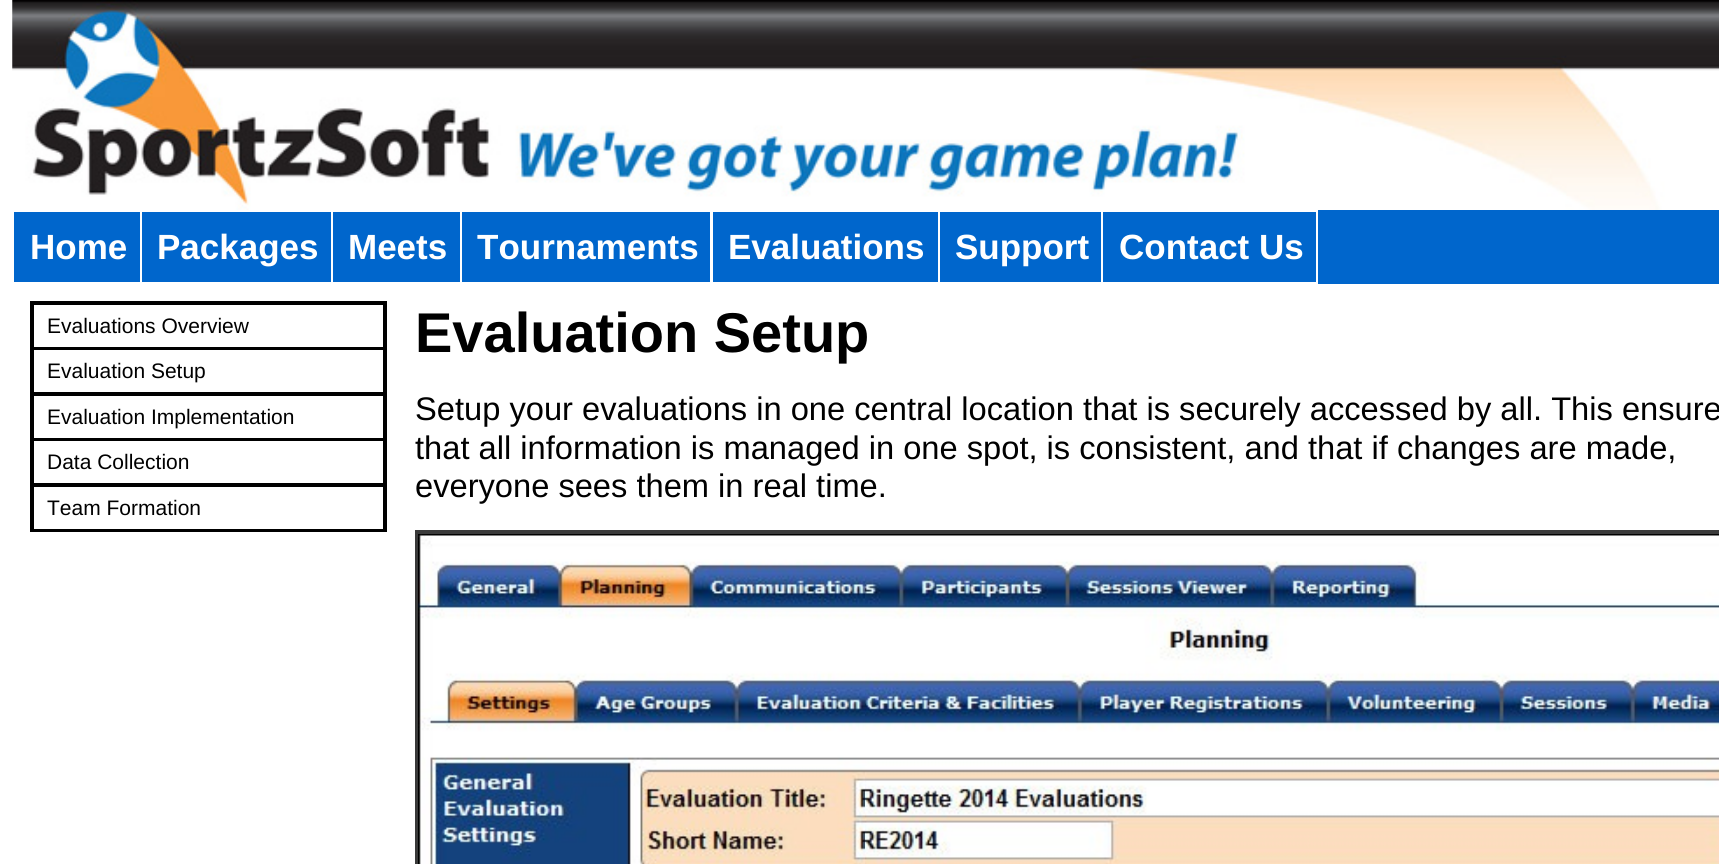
#include <cairo.h>
#include <math.h>
#include <stddef.h>

typedef struct { const char *family; double size; int italic, bold; unsigned color; } style_t;
static cairo_t *ctx;

static void ink(unsigned color) {
    cairo_set_source_rgb(ctx, (color >> 16) / 255.0, (color >> 8 & 255) / 255.0, (color & 255) / 255.0);
}

static void write(double x, double y, const char *s, const style_t *st) {
    cairo_select_font_face(ctx, st->family, st->italic ? CAIRO_FONT_SLANT_ITALIC : CAIRO_FONT_SLANT_NORMAL,
        st->bold ? CAIRO_FONT_WEIGHT_BOLD : CAIRO_FONT_WEIGHT_NORMAL);
    cairo_set_font_size(ctx, st->size);
    ink(st->color);
    cairo_move_to(ctx, x, y);
    cairo_show_text(ctx, s);
}

static void block(double x, double y, double w, double h, unsigned color) {
    ink(color);
    cairo_rectangle(ctx, x, y, w, h);
    cairo_fill(ctx);
}

static void paste(const char *path, double x, double y, double w, double h) {
    cairo_surface_t *image = cairo_image_surface_create_from_png(path);
    cairo_save(ctx);
    cairo_set_source_surface(ctx, image, x, y);
    cairo_rectangle(ctx, x, y, w, h);
    cairo_fill(ctx);
    cairo_restore(ctx);
    cairo_surface_destroy(image);
}

static const style_t s1 = {"Liberation Sans", 35, 0, 1, 0xffffff};
static const style_t s2 = {"Liberation Sans", 21, 0, 0, 0x000000};
static const style_t s3 = {"Liberation Sans", 56, 0, 1, 0x000000};
static const style_t s4 = {"Liberation Sans", 32.65, 0, 0, 0x000000};

int main(void) {
    cairo_surface_t *surface = cairo_image_surface_create(CAIRO_FORMAT_RGB24, 1719, 864);
    ctx = cairo_create(surface);
    cairo_font_options_t *options = cairo_font_options_create();
    cairo_font_options_set_hint_metrics(options, CAIRO_HINT_METRICS_OFF);
    cairo_font_options_set_hint_style(options, CAIRO_HINT_STYLE_NONE);
    cairo_set_font_options(ctx, options);
    cairo_set_miter_limit(ctx, 4);
    ink(0xffffff);
    cairo_paint(ctx);
    paste("pic1.png", 12, 0, 1707, 210);
    block(14, 210, 1705, 74, 0x0066cc);
    cairo_rectangle(ctx, 13, 211, 128, 72);
    ink(0xffffff);
    cairo_stroke(ctx);
    write(30, 259, "Home", &s1);
    cairo_rectangle(ctx, 141, 211, 191, 72);
    cairo_stroke(ctx);
    write(157, 259, "Packages", &s1);
    cairo_rectangle(ctx, 332, 211, 129, 72);
    cairo_stroke(ctx);
    write(348, 259, "Meets", &s1);
    cairo_rectangle(ctx, 461, 211, 250, 72);
    cairo_stroke(ctx);
    write(477, 259, "Tournaments", &s1);
    cairo_rectangle(ctx, 712, 211, 227, 72);
    cairo_stroke(ctx);
    write(728, 259, "Evaluations", &s1);
    cairo_rectangle(ctx, 939, 211, 163, 72);
    cairo_stroke(ctx);
    write(955, 259, "Support", &s1);
    cairo_rectangle(ctx, 1102, 211, 215, 72);
    cairo_stroke(ctx);
    write(1119, 259, "Contact Us", &s1);
    block(30, 301, 357, 2, 0x000000);
    block(383, 301, 4, 231, 0x000000);
    block(30, 530, 357, 2, 0x000000);
    block(30, 301, 4, 231, 0x000000);
    block(33, 303, 350, 2, 0x000000);
    block(33, 347, 350, 3, 0x000000);
    write(47, 333, "Evaluations Overview", &s2);
    block(33, 392, 350, 4, 0x000000);
    write(47, 378, "Evaluation Setup", &s2);
    block(33, 438, 350, 3, 0x000000);
    write(47, 424, "Evaluation Implementation", &s2);
    block(33, 483, 350, 4, 0x000000);
    write(47, 469, "Data Collection", &s2);
    block(33, 529, 350, 1, 0x000000);
    write(47, 515, "Team Formation", &s2);
    write(415, 352, "Evaluation Setup", &s3);
    write(415, 420, "Setup your evaluations in one central location that is securely accessed by all. This ensure", &s4);
    write(415, 459, "that all information is managed in one spot, is consistent, and that if changes are made,", &s4);
    write(415, 497, "everyone sees them in real time.", &s4);
    cairo_rectangle(ctx, 416, 531, 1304, 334);
    ink(0x3a3a3a);
    cairo_stroke(ctx);
    cairo_rectangle(ctx, 418, 533, 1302, 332);
    cairo_stroke(ctx);
    paste("pic2.png", 418, 534, 1301, 330);
    cairo_surface_write_to_png(surface, "screenshot.png");
    cairo_font_options_destroy(options);
    cairo_destroy(ctx);
    cairo_surface_destroy(surface);
    return 0;
}
